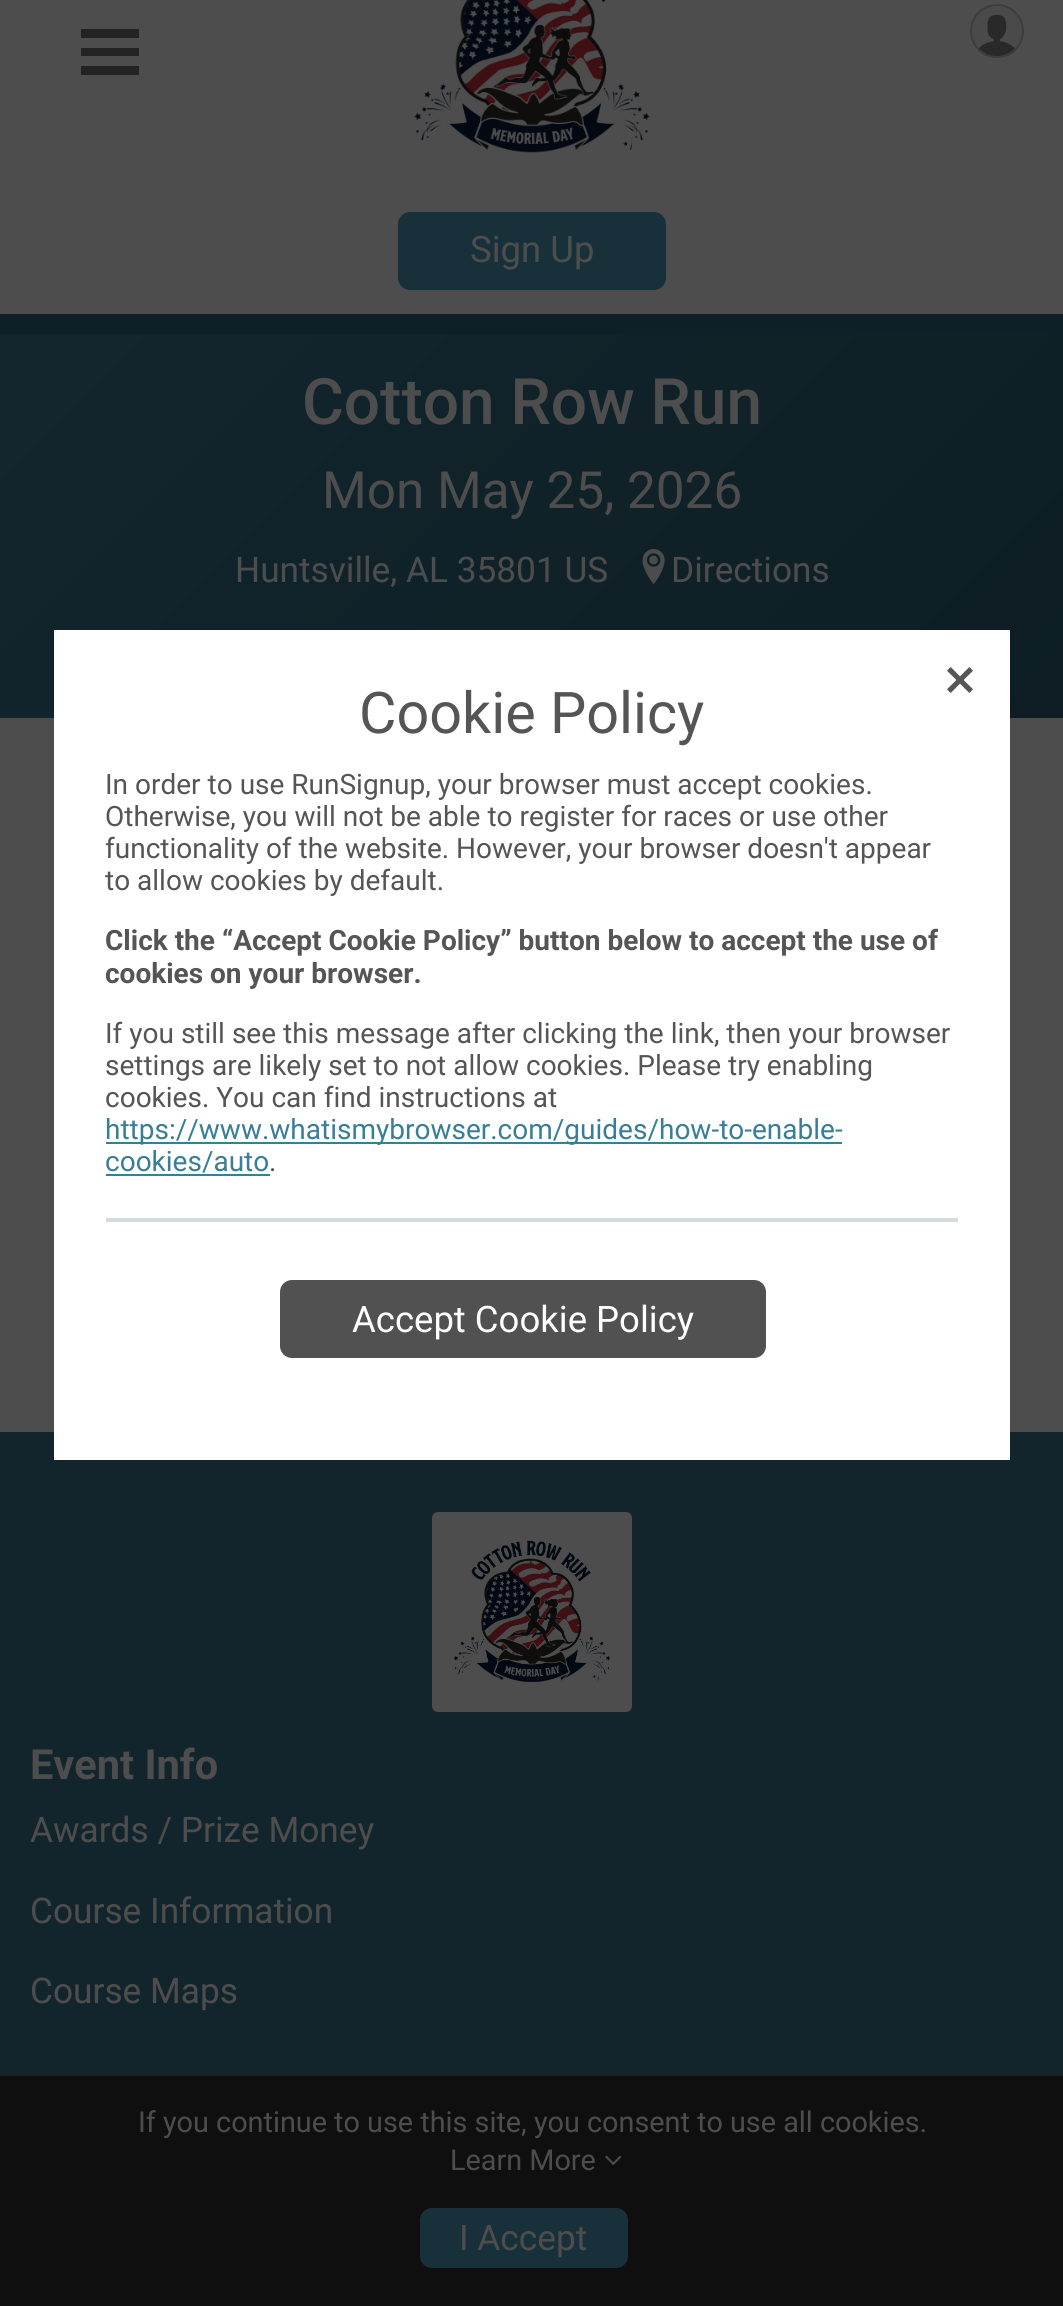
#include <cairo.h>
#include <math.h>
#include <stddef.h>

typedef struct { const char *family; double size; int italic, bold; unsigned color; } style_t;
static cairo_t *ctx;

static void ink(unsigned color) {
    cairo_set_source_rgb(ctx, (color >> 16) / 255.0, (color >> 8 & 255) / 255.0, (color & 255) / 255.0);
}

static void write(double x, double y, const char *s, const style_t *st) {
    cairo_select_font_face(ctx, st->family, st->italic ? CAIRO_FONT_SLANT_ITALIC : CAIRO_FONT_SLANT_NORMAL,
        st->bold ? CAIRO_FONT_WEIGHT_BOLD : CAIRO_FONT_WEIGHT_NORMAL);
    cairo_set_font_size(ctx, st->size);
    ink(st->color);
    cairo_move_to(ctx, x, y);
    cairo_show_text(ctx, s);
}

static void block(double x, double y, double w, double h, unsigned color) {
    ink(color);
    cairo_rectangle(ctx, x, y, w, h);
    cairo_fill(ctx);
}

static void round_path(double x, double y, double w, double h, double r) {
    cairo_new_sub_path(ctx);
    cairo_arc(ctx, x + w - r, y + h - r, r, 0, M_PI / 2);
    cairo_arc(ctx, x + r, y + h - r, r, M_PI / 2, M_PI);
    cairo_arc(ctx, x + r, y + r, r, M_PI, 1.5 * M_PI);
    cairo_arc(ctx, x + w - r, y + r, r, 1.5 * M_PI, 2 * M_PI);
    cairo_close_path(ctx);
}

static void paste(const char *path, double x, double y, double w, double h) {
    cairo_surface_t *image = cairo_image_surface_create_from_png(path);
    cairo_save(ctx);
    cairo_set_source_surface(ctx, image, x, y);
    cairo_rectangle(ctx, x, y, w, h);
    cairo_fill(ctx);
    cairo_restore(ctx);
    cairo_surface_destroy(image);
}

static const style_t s1 = {"Roboto", 36.5, 0, 0, 0x4d4d4d};
static const style_t s2 = {"Roboto Medium", 64, 0, 0, 0x4d4d4d};
static const style_t s3 = {"Roboto", 51.25, 0, 0, 0x4d4d4d};
static const style_t s4 = {"Roboto", 35.25, 0, 0, 0x4d4d4d};
static const style_t s5 = {"Roboto", 41.5, 0, 1, 0x4d4d4d};
static const style_t s6 = {"Roboto", 57.5, 0, 0, 0x555555};
static const style_t s7 = {"Roboto", 28, 0, 0, 0x555555};
static const style_t s8 = {"Roboto", 28, 0, 1, 0x555555};
static const style_t s9 = {"Roboto", 28, 0, 0, 0x387e99};
static const style_t s10 = {"Roboto", 36.5, 0, 0, 0xffffff};
static const style_t s11 = {"Roboto", 28.8, 0, 0, 0x4d4d4d};

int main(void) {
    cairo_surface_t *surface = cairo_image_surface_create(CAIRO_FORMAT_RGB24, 1063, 2306);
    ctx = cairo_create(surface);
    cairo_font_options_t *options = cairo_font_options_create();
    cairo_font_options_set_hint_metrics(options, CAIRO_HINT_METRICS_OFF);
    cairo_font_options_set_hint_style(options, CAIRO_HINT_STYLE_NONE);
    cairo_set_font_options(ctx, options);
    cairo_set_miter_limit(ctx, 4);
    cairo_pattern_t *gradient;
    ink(0x4d4d4d);
    cairo_paint(ctx);
    ink(0x232323);
    cairo_new_path(ctx);
    cairo_move_to(ctx, 139, 29);
    cairo_line_to(ctx, 139, 38);
    cairo_line_to(ctx, 81, 38);
    cairo_line_to(ctx, 81, 29);
    cairo_close_path(ctx);
    cairo_move_to(ctx, 139, 48);
    cairo_line_to(ctx, 139, 56);
    cairo_line_to(ctx, 81, 56);
    cairo_line_to(ctx, 81, 48);
    cairo_close_path(ctx);
    cairo_move_to(ctx, 139, 66);
    cairo_line_to(ctx, 139, 75);
    cairo_line_to(ctx, 81, 75);
    cairo_line_to(ctx, 81, 66);
    cairo_close_path(ctx);
    cairo_fill(ctx);
    paste("pic1.png", 414, 0, 236, 153);
    paste("pic2.png", 972, 6, 50, 50);
    cairo_arc(ctx, 997, 31, 26, 0, 2 * M_PI);
    ink(0x3d3d3d);
    cairo_stroke(ctx);
    ink(0x173039);
    round_path(398, 212, 268, 78, 12);
    cairo_fill(ctx);
    write(470, 262, "Sign Up", &s1);
    gradient = cairo_pattern_create_linear(894, 888, 170, 164);
    cairo_pattern_add_color_stop_rgba(gradient, 0, 0.051, 0.114, 0.137, 1);
    cairo_pattern_add_color_stop_rgba(gradient, 1, 0.075, 0.149, 0.18, 1);
    cairo_set_source(ctx, gradient);
    cairo_pattern_destroy(gradient);
    cairo_rectangle(ctx, 0, 334, 1063, 384);
    cairo_fill(ctx);
    block(0, 314, 1063, 20, 0x0e2027);
    write(302, 424, "Cotton Row Run", &s2);
    write(322, 508, "Mon May 25, 2026", &s3);
    write(235, 582, "Huntsville, AL 35801 US", &s4);
    paste("pic3.png", 642, 549, 23, 36);
    write(671, 582, "Directions", &s4);
    block(0, 1432, 1063, 642, 0x12252d);
    ink(0x4d4d4d);
    round_path(432, 1512, 200, 200, 6);
    cairo_fill(ctx);
    paste("pic4.png", 453, 1540, 158, 142);
    write(30, 1779, "Event Info", &s5);
    write(30, 1842, "Awards / Prize Money", &s4);
    write(30, 1923, "Course Information", &s4);
    write(30, 2003, "Course Maps", &s4);
    cairo_rectangle(ctx, 55, 631, 954, 828);
    ink(0xffffff);
    cairo_stroke(ctx);
    block(56, 632, 952, 826, 0xffffff);
    paste("pic5.png", 947, 667, 26, 26);
    write(359, 733, "Cookie Policy", &s6);
    write(105, 794, "In order to use RunSignup, your browser must accept cookies.", &s7);
    write(105, 826, "Otherwise, you will not be able to register for races or use other", &s7);
    write(105, 858, "functionality of the website. However, your browser doesn't appear", &s7);
    write(105, 890, "to allow cookies by default.", &s7);
    write(105, 950, "Click the “Accept Cookie Policy” button below to accept the use of", &s8);
    write(105, 983, "cookies on your browser.", &s8);
    write(105, 1043, "If you still see this message after clicking the link, then your browser", &s7);
    write(105, 1075, "settings are likely set to not allow cookies. Please try enabling", &s7);
    write(105, 1107, "cookies. You can find instructions at", &s7);
    block(106, 1142, 736, 2, 0x387e99);
    write(105, 1139, "https://www.whatismybrowser.com/guides/how-to-enable-", &s9);
    write(105, 1171, "cookies/auto", &s9);
    block(106, 1174, 164, 2, 0x387e99);
    write(269, 1171, ".", &s7);
    block(106, 1218, 852, 4, 0xd3dbdf);
    ink(0x515151);
    round_path(280, 1280, 486, 78, 12);
    cairo_fill(ctx);
    write(352, 1332, "Accept Cookie Policy", &s10);
    block(0, 2076, 1063, 230, 0x0f0f0f);
    block(0, 2074, 1063, 2, 0x1f1f1f);
    write(138, 2132, "If you continue to use this site, you consent to use all cookies.", &s11);
    write(450, 2170, "Learn More", &s11);
    paste("pic6.png", 605, 2155, 17, 11);
    ink(0x173039);
    round_path(420, 2208, 208, 60, 12);
    cairo_fill(ctx);
    write(459, 2250, "I Accept", &s4);
    cairo_surface_write_to_png(surface, "screenshot.png");
    cairo_font_options_destroy(options);
    cairo_destroy(ctx);
    cairo_surface_destroy(surface);
    return 0;
}
